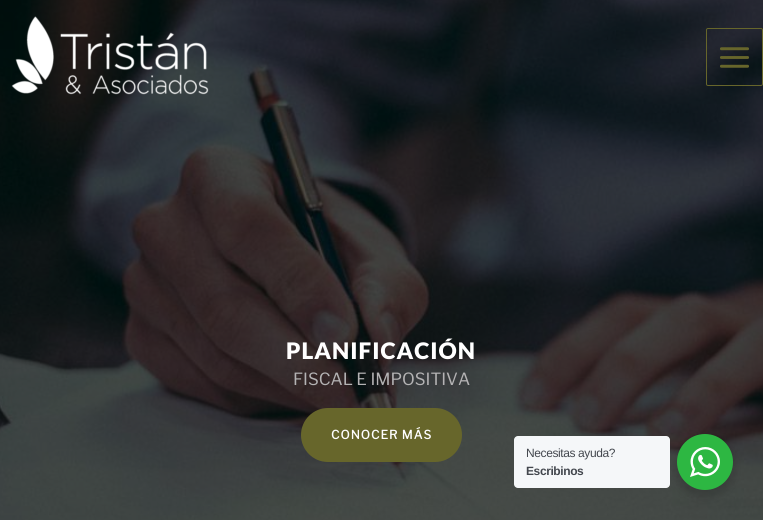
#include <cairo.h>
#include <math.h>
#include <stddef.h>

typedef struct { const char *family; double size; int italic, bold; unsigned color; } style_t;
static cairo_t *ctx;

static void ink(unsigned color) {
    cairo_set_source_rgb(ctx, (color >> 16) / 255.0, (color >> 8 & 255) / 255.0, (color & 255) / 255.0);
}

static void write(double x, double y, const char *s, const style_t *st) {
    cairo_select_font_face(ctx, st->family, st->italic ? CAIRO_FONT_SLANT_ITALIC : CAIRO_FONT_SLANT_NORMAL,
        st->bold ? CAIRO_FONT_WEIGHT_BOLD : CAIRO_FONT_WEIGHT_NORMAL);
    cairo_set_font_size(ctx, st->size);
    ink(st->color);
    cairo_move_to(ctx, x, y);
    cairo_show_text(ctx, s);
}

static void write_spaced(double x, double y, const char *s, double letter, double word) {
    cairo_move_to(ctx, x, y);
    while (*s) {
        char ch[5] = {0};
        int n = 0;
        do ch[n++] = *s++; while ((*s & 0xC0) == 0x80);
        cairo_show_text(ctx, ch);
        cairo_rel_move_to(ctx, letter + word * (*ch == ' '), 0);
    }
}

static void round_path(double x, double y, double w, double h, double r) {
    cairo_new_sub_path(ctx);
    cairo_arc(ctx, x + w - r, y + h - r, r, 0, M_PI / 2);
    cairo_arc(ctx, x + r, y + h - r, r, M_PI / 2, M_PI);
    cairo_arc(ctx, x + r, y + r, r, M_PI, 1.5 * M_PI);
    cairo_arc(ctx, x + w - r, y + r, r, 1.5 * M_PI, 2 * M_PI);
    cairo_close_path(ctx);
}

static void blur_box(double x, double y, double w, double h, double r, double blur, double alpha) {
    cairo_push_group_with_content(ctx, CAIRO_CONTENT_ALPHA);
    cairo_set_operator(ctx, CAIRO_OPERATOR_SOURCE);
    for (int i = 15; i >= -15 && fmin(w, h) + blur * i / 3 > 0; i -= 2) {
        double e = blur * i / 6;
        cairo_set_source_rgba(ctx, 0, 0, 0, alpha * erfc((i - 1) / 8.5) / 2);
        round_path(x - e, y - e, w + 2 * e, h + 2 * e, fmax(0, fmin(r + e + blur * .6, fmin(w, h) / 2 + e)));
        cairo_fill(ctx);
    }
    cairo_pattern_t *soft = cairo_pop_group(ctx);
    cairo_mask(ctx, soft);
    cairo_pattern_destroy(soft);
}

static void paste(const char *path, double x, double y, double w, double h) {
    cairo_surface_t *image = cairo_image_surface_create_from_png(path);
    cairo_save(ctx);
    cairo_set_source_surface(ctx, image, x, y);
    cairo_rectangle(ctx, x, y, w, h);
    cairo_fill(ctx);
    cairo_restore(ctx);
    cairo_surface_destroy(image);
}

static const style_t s1 = {"Libre Franklin", 16.75, 0, 0, 0xb4b3b4};

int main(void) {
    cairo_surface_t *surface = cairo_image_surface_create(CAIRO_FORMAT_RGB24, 763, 520);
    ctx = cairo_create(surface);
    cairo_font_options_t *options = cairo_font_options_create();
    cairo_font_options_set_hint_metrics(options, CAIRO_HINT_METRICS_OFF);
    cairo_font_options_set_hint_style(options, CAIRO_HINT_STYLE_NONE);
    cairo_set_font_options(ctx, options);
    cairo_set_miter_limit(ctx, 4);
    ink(0x000000);
    cairo_paint(ctx);
    paste("pic3.png", 0, 0, 763, 520);
    paste("pic1.png", 11, 16, 198, 79);
    round_path(706.5, 28.5, 56, 57, 1.5);
    ink(0x67662b);
    cairo_set_line_width(ctx, 1);
    cairo_stroke(ctx);
    paste("pic2.png", 720, 47, 29, 21);
    cairo_select_font_face(ctx, "Lato Black", CAIRO_FONT_SLANT_NORMAL, CAIRO_FONT_WEIGHT_NORMAL);
    cairo_set_font_size(ctx, 22.75);
    ink(0xffffff);
    write_spaced(286, 359, "PLANIFICACIÓN", 1, 0);
    write(293, 385, "FISCAL E IMPOSITIVA", &s1);
    ink(0x67662b);
    round_path(301, 408, 161, 54, 27);
    cairo_fill(ctx);
    cairo_select_font_face(ctx, "Libre Franklin", CAIRO_FONT_SLANT_NORMAL, CAIRO_FONT_WEIGHT_BOLD);
    cairo_set_font_size(ctx, 12);
    ink(0xffffff);
    write_spaced(331, 439, "CONOCER MÁS", 1, 0);
    ink(0x000000);
    blur_box(675, 438, 60, 60, 30, 4, 0.14);
    ink(0xf5f7f9);
    round_path(514, 436, 156, 52, 4);
    cairo_fill(ctx);
    cairo_select_font_face(ctx, "Liberation Sans", CAIRO_FONT_SLANT_NORMAL, CAIRO_FONT_WEIGHT_NORMAL);
    ink(0x43474e);
    write_spaced(526, 457, "Necesitas ayuda?", -0.4, 0);
    cairo_select_font_face(ctx, "Liberation Sans", CAIRO_FONT_SLANT_NORMAL, CAIRO_FONT_WEIGHT_BOLD);
    write_spaced(526, 475, "Escribinos", -0.4, 0);
    ink(0x2db742);
    cairo_new_path(ctx);
    cairo_arc(ctx, 705, 462, 28, 0, 2 * M_PI);
    cairo_fill(ctx);
    paste("pic4.png", 690, 447, 30, 30);
    cairo_surface_write_to_png(surface, "screenshot.png");
    cairo_font_options_destroy(options);
    cairo_destroy(ctx);
    cairo_surface_destroy(surface);
    return 0;
}
